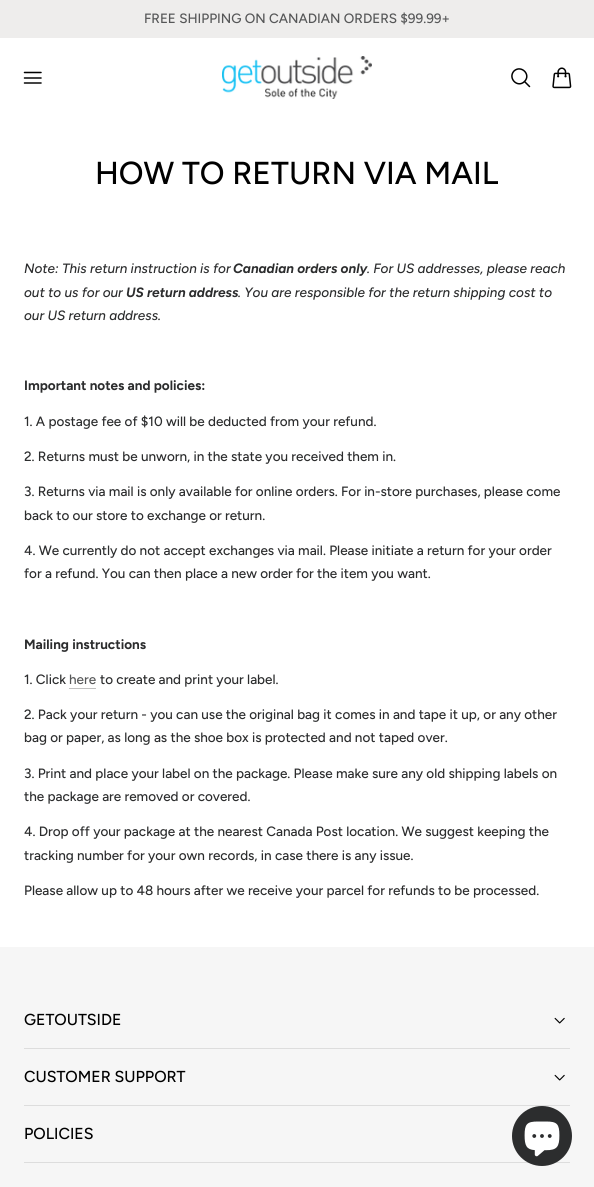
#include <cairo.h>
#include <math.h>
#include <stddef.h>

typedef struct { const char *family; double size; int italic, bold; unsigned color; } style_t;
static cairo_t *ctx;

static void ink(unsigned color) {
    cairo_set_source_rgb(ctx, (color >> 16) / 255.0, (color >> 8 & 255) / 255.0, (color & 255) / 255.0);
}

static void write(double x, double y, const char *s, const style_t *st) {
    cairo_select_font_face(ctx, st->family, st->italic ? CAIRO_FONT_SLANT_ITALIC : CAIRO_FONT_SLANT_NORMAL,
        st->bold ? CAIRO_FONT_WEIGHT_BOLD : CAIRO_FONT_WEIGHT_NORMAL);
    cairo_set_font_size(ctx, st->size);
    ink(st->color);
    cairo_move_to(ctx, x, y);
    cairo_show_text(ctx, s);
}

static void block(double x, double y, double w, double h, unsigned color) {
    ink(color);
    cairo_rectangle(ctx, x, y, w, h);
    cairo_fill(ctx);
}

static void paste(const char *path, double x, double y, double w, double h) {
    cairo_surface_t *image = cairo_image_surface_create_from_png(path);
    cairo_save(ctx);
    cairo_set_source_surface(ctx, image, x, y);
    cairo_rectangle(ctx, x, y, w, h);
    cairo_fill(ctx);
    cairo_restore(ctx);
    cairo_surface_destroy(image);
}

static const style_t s1 = {"Figtree Medium", 13.5, 0, 0, 0x565758};
static const style_t s2 = {"Figtree Medium", 31.75, 0, 0, 0x000000};
static const style_t s3 = {"Figtree Medium", 13.5, 1, 0, 0x2c2d2e};
static const style_t s4 = {"Figtree", 13.5, 1, 1, 0x2c2d2e};
static const style_t s5 = {"Figtree", 13.5, 0, 1, 0x2c2d2e};
static const style_t s6 = {"Figtree Medium", 13.5, 0, 0, 0x2c2d2e};
static const style_t s7 = {"Figtree Medium", 15.9, 0, 0, 0x000000};

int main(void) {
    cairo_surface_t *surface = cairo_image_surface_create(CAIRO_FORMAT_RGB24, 594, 1187);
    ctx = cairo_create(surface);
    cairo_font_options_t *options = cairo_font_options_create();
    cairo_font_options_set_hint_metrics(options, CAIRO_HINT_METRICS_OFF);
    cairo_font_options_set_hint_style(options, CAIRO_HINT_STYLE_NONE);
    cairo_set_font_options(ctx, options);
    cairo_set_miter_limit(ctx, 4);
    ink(0xffffff);
    cairo_paint(ctx);
    block(0, 0, 594, 38, 0xeeedec);
    write(144, 23, "FREE SHIPPING ON CANADIAN ORDERS $99.99+", &s1);
    cairo_new_path(ctx);
    cairo_move_to(ctx, 24.5, 72.5);
    cairo_line_to(ctx, 41, 72.5);
    cairo_move_to(ctx, 24.5, 78);
    cairo_line_to(ctx, 41, 78);
    cairo_move_to(ctx, 24.5, 83);
    cairo_line_to(ctx, 41, 83);
    ink(0x000000);
    cairo_set_line_width(ctx, 1.5);
    cairo_set_line_cap(ctx, CAIRO_LINE_CAP_ROUND);
    cairo_set_line_join(ctx, CAIRO_LINE_JOIN_ROUND);
    cairo_stroke(ctx);
    paste("pic1.png", 222, 56, 150, 43);
    cairo_new_path(ctx);
    cairo_move_to(ctx, 529.5, 86.5);
    cairo_line_to(ctx, 524.5, 81.5);
    cairo_move_to(ctx, 524.5, 81.5);
    cairo_curve_to(ctx, 531.5, 74.5, 521, 64.5, 514, 71);
    cairo_curve_to(ctx, 507.5, 78, 517.5, 88.5, 524.5, 81.5);
    cairo_close_path(ctx);
    cairo_stroke(ctx);
    paste("pic2.png", 552, 67, 20, 22);
    write(95, 184, "HOW TO RETURN VIA MAIL", &s2);
    write(24, 273, "Note: This return instruction is for", &s3);
    write(233, 273, "Canadian orders only", &s4);
    write(367, 273, ". For US addresses, please reach", &s3);
    write(24, 297, "out to us for our", &s3);
    write(126, 297, "US return address", &s4);
    write(238, 297, ". You are responsible for the return shipping cost to", &s3);
    write(24, 320, "our US return address.", &s3);
    write(24, 390, "Important notes and policies:", &s5);
    write(24, 426, "1. A postage fee of $10 will be deducted from your refund.", &s6);
    write(24, 461, "2. Returns must be unworn, in the state you received them in.", &s6);
    write(24, 496, "3. Returns via mail is only available for online orders. For in-store purchases, please come", &s6);
    write(24, 520, "back to our store to exchange or return.", &s6);
    write(24, 555, "4. We currently do not accept exchanges via mail. Please initiate a return for your order", &s6);
    write(24, 578, "for a refund. You can then place a new order for the item you want.", &s6);
    write(24, 649, "Mailing instructions", &s5);
    write(24, 684, "1. Click", &s6);
    write(69, 684, "here", &s1);
    block(69, 688, 27, 1, 0xc0c0c0);
    write(100, 684, "to create and print your label.", &s6);
    write(24, 719, "2. Pack your return - you can use the original bag it comes in and tape it up, or any other", &s6);
    write(24, 742, "bag or paper, as long as the shoe box is protected and not taped over.", &s6);
    write(24, 778, "3. Print and place your label on the package. Please make sure any old shipping labels on", &s6);
    write(24, 801, "the package are removed or covered.", &s6);
    write(24, 836, "4. Drop off your package at the nearest Canada Post location. We suggest keeping the", &s6);
    write(24, 860, "tracking number for your own records, in case there is any issue.", &s6);
    write(24, 895, "Please allow up to 48 hours after we receive your parcel for refunds to be processed.", &s6);
    block(0, 947, 594, 240, 0xf6f6f6);
    block(24, 1048, 546, 1, 0xdddddd);
    write(24, 1025, "GETOUTSIDE", &s7);
    paste("pic3.png", 554, 1017, 11, 7);
    block(24, 1105, 546, 1, 0xdddddd);
    write(24, 1082, "CUSTOMER SUPPORT", &s7);
    paste("pic3.png", 554, 1074, 11, 7);
    block(24, 1162, 546, 1, 0xdddddd);
    write(24, 1139, "POLICIES", &s7);
    ink(0x2c2d2e);
    cairo_new_path(ctx);
    cairo_arc(ctx, 542, 1136, 30, 0, 2 * M_PI);
    cairo_fill(ctx);
    paste("pic4.png", 524, 1121, 36, 36);
    cairo_surface_write_to_png(surface, "screenshot.png");
    cairo_font_options_destroy(options);
    cairo_destroy(ctx);
    cairo_surface_destroy(surface);
    return 0;
}
